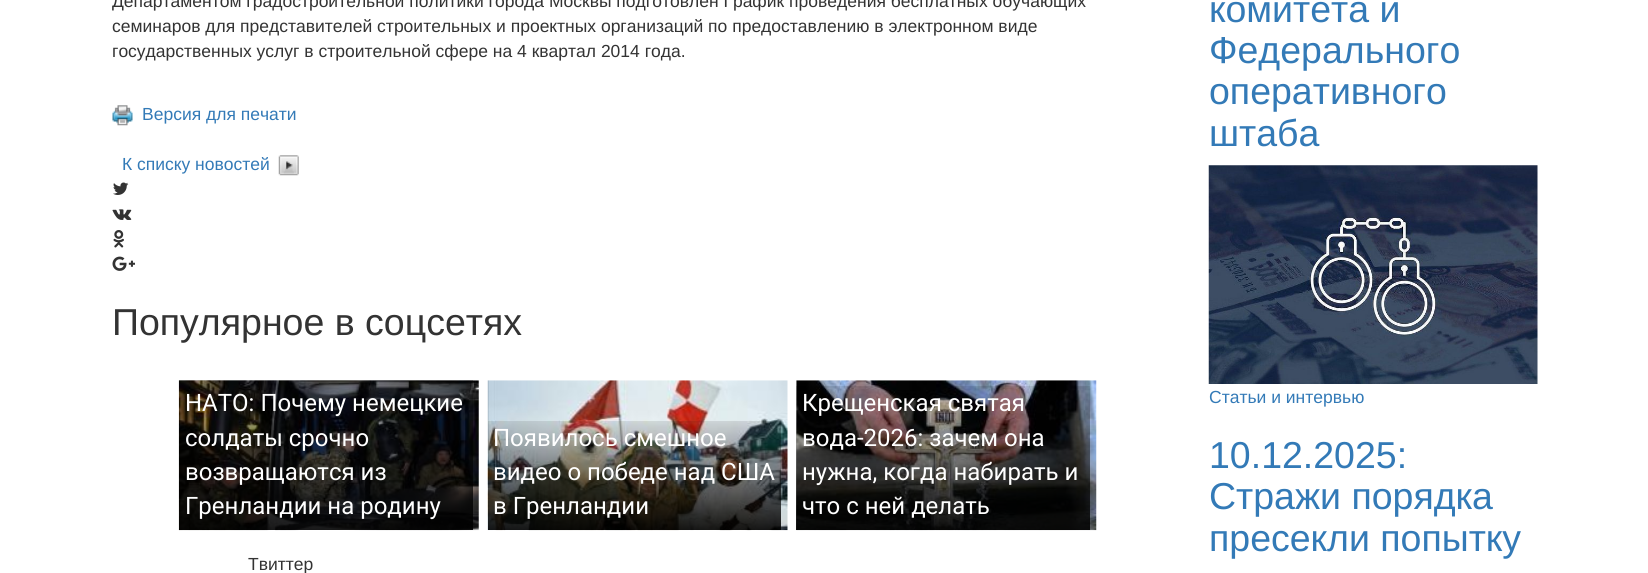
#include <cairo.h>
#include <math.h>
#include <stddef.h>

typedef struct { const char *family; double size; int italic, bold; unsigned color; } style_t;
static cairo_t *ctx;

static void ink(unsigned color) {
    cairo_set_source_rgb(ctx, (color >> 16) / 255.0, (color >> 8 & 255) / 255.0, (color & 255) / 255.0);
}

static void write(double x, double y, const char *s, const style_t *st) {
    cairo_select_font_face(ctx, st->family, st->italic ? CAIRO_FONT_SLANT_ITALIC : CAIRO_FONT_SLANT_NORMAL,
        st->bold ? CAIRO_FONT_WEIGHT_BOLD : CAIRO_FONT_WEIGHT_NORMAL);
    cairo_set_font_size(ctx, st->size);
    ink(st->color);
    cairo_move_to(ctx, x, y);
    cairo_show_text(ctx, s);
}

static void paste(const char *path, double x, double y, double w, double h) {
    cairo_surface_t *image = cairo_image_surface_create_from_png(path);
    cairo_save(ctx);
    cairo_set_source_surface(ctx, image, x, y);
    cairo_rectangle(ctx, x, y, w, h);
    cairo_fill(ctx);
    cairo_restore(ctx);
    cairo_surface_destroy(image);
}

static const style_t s1 = {"Liberation Sans", 17.5, 0, 0, 0x333333};
static const style_t s2 = {"Liberation Sans", 17.5, 0, 0, 0x337ab7};
static const style_t s3 = {"Liberation Sans", 37.5, 0, 0, 0x333333};
static const style_t s4 = {"Roboto", 24, 0, 0, 0xffffff};
static const style_t s5 = {"Liberation Sans", 37.5, 0, 0, 0x337ab7};

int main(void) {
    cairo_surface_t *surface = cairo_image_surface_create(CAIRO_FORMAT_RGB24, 1648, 573);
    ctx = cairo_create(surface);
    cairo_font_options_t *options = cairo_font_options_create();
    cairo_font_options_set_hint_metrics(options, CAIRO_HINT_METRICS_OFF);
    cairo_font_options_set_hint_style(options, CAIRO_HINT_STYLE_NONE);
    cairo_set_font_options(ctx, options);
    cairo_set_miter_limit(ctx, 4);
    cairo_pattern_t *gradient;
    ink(0xffffff);
    cairo_paint(ctx);
    write(112, 7, "Департаментом градостроительной политики города Москвы подготовлен График проведения бесплатных обучающих", &s1);
    write(112, 32, "семинаров для представителей строительных и проектных организаций по предоставлению в электронном виде", &s1);
    write(112, 57, "государственных услуг в строительной сфере на 4 квартал 2014 года.", &s1);
    paste("pic1.png", 112, 105, 21, 21);
    write(142, 120, "Версия для печати", &s2);
    write(122, 170, "К списку новостей", &s2);
    paste("pic2.png", 278, 155, 21, 21);
    paste("pic3.png", 113, 182, 16, 13);
    paste("pic4.png", 112, 209, 20, 11);
    paste("pic5.png", 113, 230, 11, 18);
    paste("pic6.png", 112, 256, 23, 15);
    write(112, 335, "Популярное в соцсетях", &s3);
    paste("pic7.png", 178, 380, 301, 151);
    gradient = cairo_pattern_create_linear(326, 353, 326, 530);
    cairo_pattern_add_color_stop_rgba(gradient, 0, 0, 0, 0, 0.1);
    cairo_pattern_add_color_stop_rgba(gradient, 1, 0, 0, 0, 0.9);
    cairo_set_source(ctx, gradient);
    cairo_pattern_destroy(gradient);
    cairo_rectangle(ctx, 179, 380, 294, 150);
    cairo_fill(ctx);
    write(185, 411, "НАТО: Почему немецкие", &s4);
    write(185, 446, "солдаты срочно", &s4);
    write(185, 480, "возвращаются из", &s4);
    write(185, 514, "Гренландии на родину", &s4);
    paste("pic8.png", 487, 380, 301, 151);
    write(493, 446, "Появилось смешное", &s4);
    write(493, 480, "видео о победе над США", &s4);
    write(493, 514, "в Гренландии", &s4);
    paste("pic9.png", 796, 380, 301, 151);
    gradient = cairo_pattern_create_linear(943, 386, 943, 530);
    cairo_pattern_add_color_stop_rgba(gradient, 0, 0, 0, 0, 0.1);
    cairo_pattern_add_color_stop_rgba(gradient, 1, 0, 0, 0, 0.9);
    cairo_set_source(ctx, gradient);
    cairo_pattern_destroy(gradient);
    cairo_rectangle(ctx, 796, 386, 294, 144);
    cairo_fill(ctx);
    write(802, 411, "Крещенская святая", &s4);
    write(802, 446, "вода-2026: зачем она", &s4);
    write(802, 480, "нужна, когда набирать и", &s4);
    write(802, 514, "что с ней делать", &s4);
    write(248, 570, "Твиттер", &s1);
    write(1209, 22, "комитета и", &s5);
    write(1209, 63, "Федерального", &s5);
    write(1209, 104, "оперативного", &s5);
    write(1209, 146, "штаба", &s5);
    paste("pic10.png", 1208, 165, 330, 219);
    write(1209, 403, "Статьи и интервью", &s2);
    write(1209, 468, "10.12.2025:", &s5);
    write(1209, 509, "Стражи порядка", &s5);
    write(1209, 551, "пресекли попытку", &s5);
    cairo_surface_write_to_png(surface, "screenshot.png");
    cairo_font_options_destroy(options);
    cairo_destroy(ctx);
    cairo_surface_destroy(surface);
    return 0;
}
